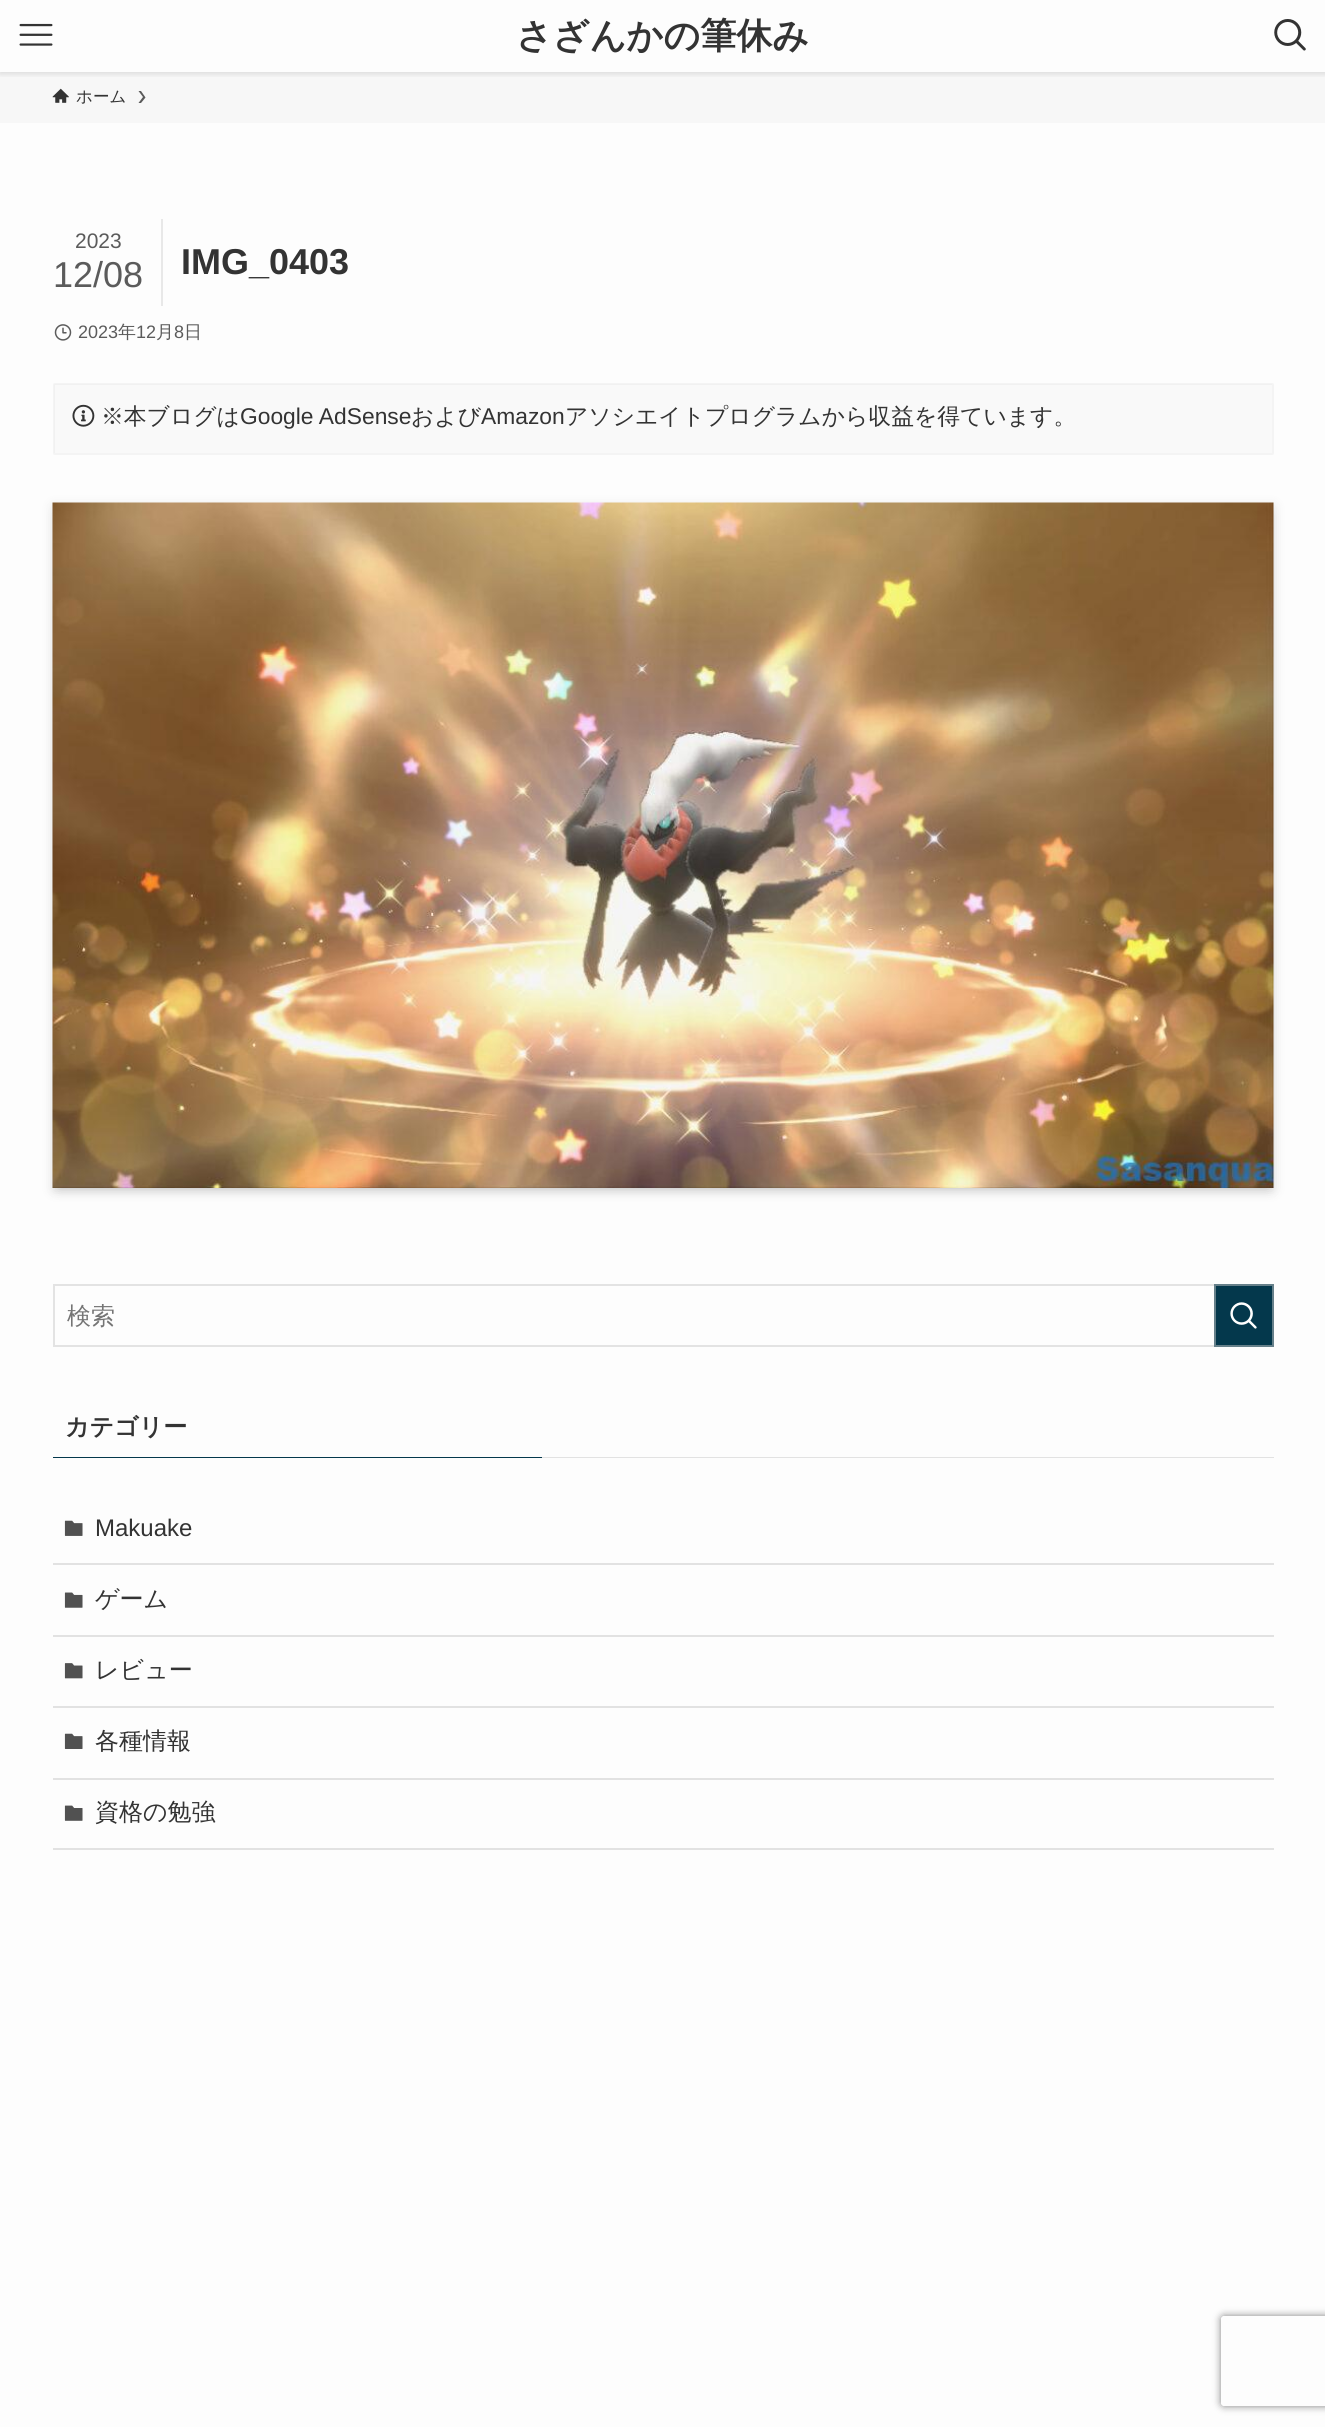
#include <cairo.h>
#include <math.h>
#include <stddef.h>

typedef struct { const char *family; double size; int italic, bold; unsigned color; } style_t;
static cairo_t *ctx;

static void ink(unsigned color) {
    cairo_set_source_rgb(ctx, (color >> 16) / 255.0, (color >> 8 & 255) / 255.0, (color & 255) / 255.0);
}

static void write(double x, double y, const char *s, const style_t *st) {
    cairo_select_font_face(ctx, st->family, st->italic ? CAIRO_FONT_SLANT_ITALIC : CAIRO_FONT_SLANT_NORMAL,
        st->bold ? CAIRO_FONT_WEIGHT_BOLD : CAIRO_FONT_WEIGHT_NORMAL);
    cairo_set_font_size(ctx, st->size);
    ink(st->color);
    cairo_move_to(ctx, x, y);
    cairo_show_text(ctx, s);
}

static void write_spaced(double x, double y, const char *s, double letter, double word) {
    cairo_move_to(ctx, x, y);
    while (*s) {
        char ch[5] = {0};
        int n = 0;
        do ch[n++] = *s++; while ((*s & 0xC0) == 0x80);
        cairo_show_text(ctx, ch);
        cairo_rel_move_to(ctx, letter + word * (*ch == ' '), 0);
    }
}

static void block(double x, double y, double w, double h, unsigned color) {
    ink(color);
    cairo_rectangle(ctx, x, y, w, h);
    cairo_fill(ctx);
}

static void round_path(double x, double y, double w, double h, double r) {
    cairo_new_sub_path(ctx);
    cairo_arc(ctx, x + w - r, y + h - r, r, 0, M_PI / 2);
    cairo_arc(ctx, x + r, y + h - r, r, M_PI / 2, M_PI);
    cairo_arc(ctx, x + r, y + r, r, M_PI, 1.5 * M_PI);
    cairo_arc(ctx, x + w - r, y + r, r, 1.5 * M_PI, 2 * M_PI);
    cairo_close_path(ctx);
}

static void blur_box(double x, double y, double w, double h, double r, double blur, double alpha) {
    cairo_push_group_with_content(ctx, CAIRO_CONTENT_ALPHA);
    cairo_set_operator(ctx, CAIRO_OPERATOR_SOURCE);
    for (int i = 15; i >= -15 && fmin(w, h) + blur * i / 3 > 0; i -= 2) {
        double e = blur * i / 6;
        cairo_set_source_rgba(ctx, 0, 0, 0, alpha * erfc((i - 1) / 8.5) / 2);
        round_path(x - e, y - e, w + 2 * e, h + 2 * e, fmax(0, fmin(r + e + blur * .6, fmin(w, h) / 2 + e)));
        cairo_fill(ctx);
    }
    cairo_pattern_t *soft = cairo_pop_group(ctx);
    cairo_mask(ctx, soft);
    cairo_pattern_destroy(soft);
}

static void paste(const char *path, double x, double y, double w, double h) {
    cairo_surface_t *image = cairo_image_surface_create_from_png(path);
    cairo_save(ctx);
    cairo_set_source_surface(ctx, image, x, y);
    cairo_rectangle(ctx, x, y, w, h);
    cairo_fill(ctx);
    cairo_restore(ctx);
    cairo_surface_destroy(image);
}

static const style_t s1 = {"WenQuanYi Zen Hei", 36, 0, 1, 0x333333};
static const style_t s2 = {"WenQuanYi Zen Hei Medium", 16.5, 0, 0, 0x333333};
static const style_t s3 = {"Liberation Sans", 21, 0, 0, 0x5b5b5b};
static const style_t s4 = {"Liberation Sans", 36, 0, 0, 0x5b5b5b};
static const style_t s5 = {"Liberation Sans", 36, 0, 1, 0x333333};
static const style_t s6 = {"Liberation Sans", 18, 0, 0, 0x5b5b5b};
static const style_t s7 = {"WenQuanYi Zen Hei Medium", 18, 0, 0, 0x5b5b5b};
static const style_t s8 = {"WenQuanYi Zen Hei Medium", 22.8, 0, 0, 0x333333};
static const style_t s9 = {"Liberation Sans", 22.8, 0, 0, 0x333333};
static const style_t s10 = {"WenQuanYi Zen Hei Medium", 24, 0, 0, 0x757575};
static const style_t s11 = {"WenQuanYi Zen Hei", 24, 0, 1, 0x333333};
static const style_t s12 = {"Liberation Sans", 24, 0, 0, 0x333333};
static const style_t s13 = {"WenQuanYi Zen Hei Medium", 24, 0, 0, 0x333333};

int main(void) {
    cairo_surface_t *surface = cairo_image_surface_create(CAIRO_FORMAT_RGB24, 1325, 2427);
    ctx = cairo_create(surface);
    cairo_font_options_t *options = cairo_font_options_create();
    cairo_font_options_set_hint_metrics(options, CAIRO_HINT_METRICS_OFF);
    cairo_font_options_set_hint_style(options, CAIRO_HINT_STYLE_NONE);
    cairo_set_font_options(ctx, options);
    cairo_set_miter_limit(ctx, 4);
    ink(0xfdfdfd);
    cairo_paint(ctx);
    block(0, 72, 1325, 51, 0xf7f7f7);
    cairo_save(ctx);
    cairo_rectangle(ctx, 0, 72, 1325, 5);
    cairo_clip(ctx);
    ink(0x000000);
    blur_box(0, 2, 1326, 72, 0, 3, 0.12);
    cairo_restore(ctx);
    paste("pic1.png", 19, 23, 34, 23);
    write(516, 48, "さざんかの筆休み", &s1);
    paste("pic2.png", 1274, 19, 32, 32);
    paste("pic3.png", 52, 88, 17, 15);
    write(76, 102, "ホーム", &s2);
    ink(0x5a5a5a);
    cairo_new_path(ctx);
    cairo_move_to(ctx, 141, 91);
    cairo_line_to(ctx, 138.5, 91);
    cairo_line_to(ctx, 143, 97);
    cairo_line_to(ctx, 138.5, 103);
    cairo_line_to(ctx, 141, 103);
    cairo_line_to(ctx, 145.5, 97.5);
    cairo_close_path(ctx);
    cairo_fill(ctx);
    block(161, 219, 2, 87, 0xe8e8e8);
    write(75, 248, "2023", &s3);
    write(53, 287, "12/08", &s4);
    write(181, 274, "IMG_0403", &s5);
    paste("pic4.png", 54, 324, 18, 17);
    write(78, 338, "2023", &s6);
    write(118, 338, "年", &s7);
    write(136, 338, "12", &s6);
    write(156, 338, "月", &s7);
    write(174, 338, "8", &s6);
    write(184, 338, "日", &s7);
    block(54, 384, 1218, 69, 0xf9f9f9);
    round_path(54, 384, 1219, 70, 0.5);
    cairo_set_source_rgba(ctx, 0.78, 0.78, 0.78, 0.15);
    cairo_stroke(ctx);
    paste("pic5.png", 72, 404, 23, 23);
    write(101, 424, "※本ブログは", &s8);
    cairo_select_font_face(ctx, "Liberation Sans", CAIRO_FONT_SLANT_NORMAL, CAIRO_FONT_WEIGHT_NORMAL);
    write_spaced(240, 424, "Google AdSense", 0, -1);
    write(411, 424, "および", &s8);
    write(481, 424, "Amazon", &s9);
    write(565, 424, "アソシエイトプログラムから収益を得ています。", &s8);
    ink(0x000000);
    blur_box(59, 515, 1209, 673, 0, 6, 0.2);
    blur_box(53, 506, 1221, 685, 0, 6, 0.1);
    paste("pic6.png", 52, 502, 1222, 686);
    cairo_rectangle(ctx, 54, 1285, 1219, 61);
    ink(0xe3e3e3);
    cairo_stroke(ctx);
    write(67, 1324, "検索", &s10);
    ink(0x04384c);
    cairo_rectangle(ctx, 1215, 1285, 58, 61);
    cairo_fill_preserve(ctx);
    ink(0x66808a);
    cairo_stroke(ctx);
    paste("pic7.png", 1230, 1302, 27, 27);
    write(65, 1435, "カテゴリー", &s11);
    block(53, 1457, 489, 1, 0x04384c);
    block(542, 1457, 732, 1, 0xe2e2e2);
    block(53, 1563, 1221, 2, 0xe2e2e2);
    paste("pic8.png", 64, 1520, 19, 16);
    write(95, 1536, "Makuake", &s12);
    block(53, 1635, 1221, 2, 0xe2e2e2);
    paste("pic9.png", 64, 1592, 19, 16);
    write(95, 1607, "ゲーム", &s13);
    block(53, 1706, 1221, 2, 0xe2e2e2);
    paste("pic10.png", 64, 1663, 19, 16);
    write(95, 1678, "レビュー", &s13);
    block(53, 1778, 1221, 2, 0xe2e2e2);
    paste("pic11.png", 64, 1733, 19, 16);
    write(95, 1749, "各種情報", &s13);
    block(53, 1848, 1221, 2, 0xe2e2e2);
    paste("pic12.png", 64, 1805, 19, 16);
    write(95, 1820, "資格の勉強", &s13);
    cairo_save(ctx);
    cairo_set_fill_rule(ctx, CAIRO_FILL_RULE_EVEN_ODD);
    cairo_new_path(ctx);
    cairo_move_to(ctx, 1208, 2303);
    cairo_line_to(ctx, 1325, 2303);
    cairo_line_to(ctx, 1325, 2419);
    cairo_line_to(ctx, 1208, 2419);
    cairo_close_path(ctx);
    cairo_move_to(ctx, 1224, 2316);
    cairo_line_to(ctx, 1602, 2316);
    cairo_curve_to(ctx, 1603.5, 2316, 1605, 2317.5, 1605, 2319);
    cairo_line_to(ctx, 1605, 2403);
    cairo_curve_to(ctx, 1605, 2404.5, 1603.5, 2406, 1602, 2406);
    cairo_line_to(ctx, 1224, 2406);
    cairo_curve_to(ctx, 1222.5, 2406, 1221, 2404.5, 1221, 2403);
    cairo_line_to(ctx, 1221, 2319);
    cairo_curve_to(ctx, 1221, 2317.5, 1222.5, 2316, 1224, 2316);
    cairo_close_path(ctx);
    cairo_clip(ctx);
    ink(0x808080);
    blur_box(1221, 2316, 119, 90, 3, 4, 1);
    cairo_restore(ctx);
    cairo_surface_write_to_png(surface, "screenshot.png");
    cairo_font_options_destroy(options);
    cairo_destroy(ctx);
    cairo_surface_destroy(surface);
    return 0;
}
